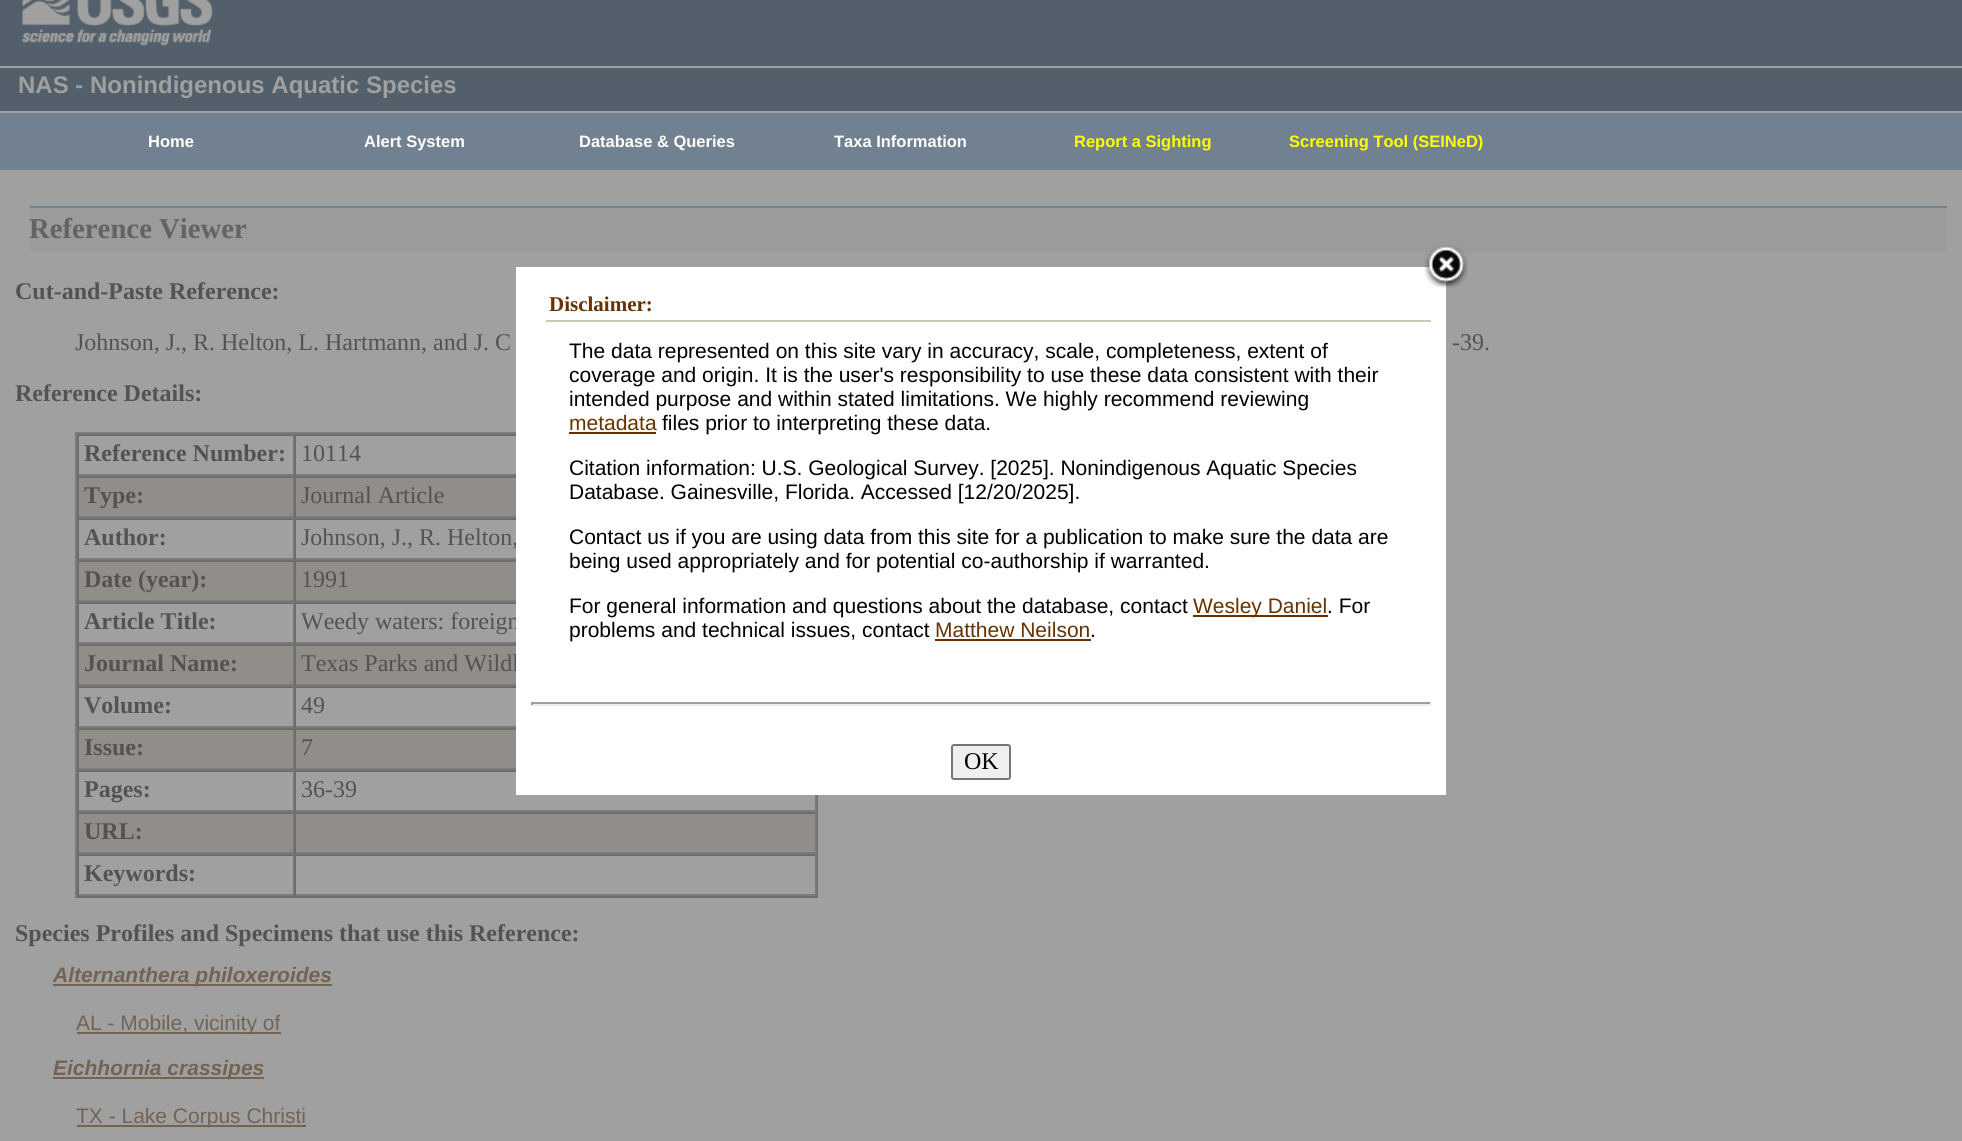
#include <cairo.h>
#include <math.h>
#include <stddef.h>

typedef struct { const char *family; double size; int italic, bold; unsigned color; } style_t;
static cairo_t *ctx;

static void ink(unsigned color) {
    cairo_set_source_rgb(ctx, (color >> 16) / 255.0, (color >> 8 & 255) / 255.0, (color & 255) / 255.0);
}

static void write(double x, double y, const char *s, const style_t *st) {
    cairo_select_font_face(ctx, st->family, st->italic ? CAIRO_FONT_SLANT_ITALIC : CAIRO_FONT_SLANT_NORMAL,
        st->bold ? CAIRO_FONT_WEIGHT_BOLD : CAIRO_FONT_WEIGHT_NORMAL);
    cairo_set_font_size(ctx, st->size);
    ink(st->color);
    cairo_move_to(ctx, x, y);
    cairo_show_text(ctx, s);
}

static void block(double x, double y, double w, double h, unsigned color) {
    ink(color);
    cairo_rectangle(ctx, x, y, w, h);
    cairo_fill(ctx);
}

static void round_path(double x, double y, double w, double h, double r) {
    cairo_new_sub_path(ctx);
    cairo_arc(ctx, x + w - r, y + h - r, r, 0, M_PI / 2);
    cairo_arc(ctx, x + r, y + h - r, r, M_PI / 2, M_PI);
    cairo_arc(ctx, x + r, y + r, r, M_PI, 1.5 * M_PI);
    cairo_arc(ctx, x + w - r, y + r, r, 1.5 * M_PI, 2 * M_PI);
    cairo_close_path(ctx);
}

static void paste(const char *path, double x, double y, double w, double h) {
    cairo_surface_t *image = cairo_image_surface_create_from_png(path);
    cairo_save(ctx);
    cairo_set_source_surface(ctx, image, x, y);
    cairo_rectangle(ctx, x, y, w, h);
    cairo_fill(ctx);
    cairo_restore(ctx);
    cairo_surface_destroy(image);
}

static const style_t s1 = {"Liberation Sans", 24, 0, 1, 0xa0a0a0};
static const style_t s2 = {"Liberation Sans", 16.5, 0, 1, 0xffffff};
static const style_t s3 = {"Liberation Sans", 16.5, 0, 1, 0xffff00};
static const style_t s4 = {"Liberation Serif", 28.75, 0, 1, 0x636363};
static const style_t s5 = {"Liberation Serif", 24, 0, 1, 0x535353};
static const style_t s6 = {"Liberation Serif", 24, 0, 0, 0x535353};
static const style_t s7 = {"Liberation Sans", 21, 1, 1, 0x726353};
static const style_t s8 = {"Liberation Sans", 21, 0, 0, 0x726353};
static const style_t s9 = {"Liberation Serif", 21, 0, 1, 0x663300};
static const style_t s10 = {"Liberation Sans", 21, 0, 0, 0x000000};
static const style_t s11 = {"Liberation Sans", 21, 0, 0, 0x663300};
static const style_t s12 = {"Liberation Serif", 24, 0, 0, 0x000000};

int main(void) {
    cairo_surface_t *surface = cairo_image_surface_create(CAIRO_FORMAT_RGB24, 1962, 1141);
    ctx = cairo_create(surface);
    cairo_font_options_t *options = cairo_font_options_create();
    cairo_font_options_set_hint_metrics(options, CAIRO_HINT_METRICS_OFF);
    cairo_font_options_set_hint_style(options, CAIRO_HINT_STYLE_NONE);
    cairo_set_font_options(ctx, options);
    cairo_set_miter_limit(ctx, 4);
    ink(0xa0a0a0);
    cairo_paint(ctx);
    block(0, 0, 1962, 66, 0x535f6a);
    paste("pic1.png", 22, 0, 191, 46);
    block(0, 68, 1962, 43, 0x535f6a);
    write(18, 93, "NAS - Nonindigenous Aquatic Species", &s1);
    block(0, 113, 1962, 57, 0x728191);
    write(148, 147, "Home", &s2);
    write(364, 147, "Alert System", &s2);
    write(579, 147, "Database & Queries", &s2);
    write(834, 147, "Taxa Information", &s2);
    write(1074, 147, "Report a Sighting", &s3);
    write(1289, 147, "Screening Tool (SEINeD)", &s3);
    block(30, 208, 1917, 44, 0x9b9b9b);
    block(30, 206, 1917, 2, 0x728191);
    write(29, 238, "Reference Viewer", &s4);
    write(15, 299, "Cut-and-Paste Reference:", &s5);
    write(75, 350, "Johnson, J., R. Helton, L. Hartmann, and J. C", &s6);
    write(1452, 350, "-39.", &s6);
    write(15, 401, "Reference Details:", &s5);
    block(75, 432, 441, 2, 0x7a7a7a);
    block(817, 795, 1, 102, 0x6d6d6d);
    block(75, 896, 743, 2, 0x6d6d6d);
    block(75, 432, 2, 465, 0x7a7a7a);
    block(77, 434, 439, 2, 0x6d6d6d);
    block(293, 434, 1, 42, 0x7a7a7a);
    block(77, 474, 439, 2, 0x7a7a7a);
    block(77, 434, 2, 42, 0x6d6d6d);
    write(84, 461, "Reference Number:", &s5);
    block(294, 434, 2, 42, 0x6d6d6d);
    write(301, 461, "10114", &s6);
    block(79, 478, 437, 38, 0x918d88);
    block(77, 476, 439, 2, 0x6d6d6d);
    block(293, 476, 1, 42, 0x7a7a7a);
    block(77, 516, 439, 2, 0x7a7a7a);
    block(77, 476, 2, 42, 0x6d6d6d);
    write(84, 503, "Type:", &s5);
    block(294, 476, 2, 42, 0x6d6d6d);
    write(301, 503, "Journal Article", &s6);
    block(77, 518, 439, 2, 0x6d6d6d);
    block(293, 518, 1, 42, 0x7a7a7a);
    block(77, 558, 439, 2, 0x7a7a7a);
    block(77, 518, 2, 42, 0x6d6d6d);
    write(84, 545, "Author:", &s5);
    block(294, 518, 2, 42, 0x6d6d6d);
    write(301, 545, "Johnson, J., R. Helton,", &s6);
    block(79, 562, 437, 38, 0x918d88);
    block(77, 560, 439, 2, 0x6d6d6d);
    block(293, 560, 1, 42, 0x7a7a7a);
    block(77, 600, 439, 2, 0x7a7a7a);
    block(77, 560, 2, 42, 0x6d6d6d);
    write(84, 587, "Date (year):", &s5);
    block(294, 560, 2, 42, 0x6d6d6d);
    write(301, 587, "1991", &s6);
    block(77, 602, 439, 2, 0x6d6d6d);
    block(293, 602, 1, 42, 0x7a7a7a);
    block(77, 642, 439, 2, 0x7a7a7a);
    block(77, 602, 2, 42, 0x6d6d6d);
    write(84, 629, "Article Title:", &s5);
    block(294, 602, 2, 42, 0x6d6d6d);
    write(301, 629, "Weedy waters: foreign", &s6);
    block(79, 646, 437, 38, 0x918d88);
    block(77, 644, 439, 2, 0x6d6d6d);
    block(293, 644, 1, 42, 0x7a7a7a);
    block(77, 684, 439, 2, 0x7a7a7a);
    block(77, 644, 2, 42, 0x6d6d6d);
    write(84, 671, "Journal Name:", &s5);
    block(294, 644, 2, 42, 0x6d6d6d);
    write(301, 671, "Texas Parks and Wildl", &s6);
    block(77, 686, 439, 2, 0x6d6d6d);
    block(293, 686, 1, 42, 0x7a7a7a);
    block(77, 726, 439, 2, 0x7a7a7a);
    block(77, 686, 2, 42, 0x6d6d6d);
    write(84, 713, "Volume:", &s5);
    block(294, 686, 2, 42, 0x6d6d6d);
    write(301, 713, "49", &s6);
    block(79, 730, 437, 38, 0x918d88);
    block(77, 728, 439, 2, 0x6d6d6d);
    block(293, 728, 1, 42, 0x7a7a7a);
    block(77, 768, 439, 2, 0x7a7a7a);
    block(77, 728, 2, 42, 0x6d6d6d);
    write(84, 755, "Issue:", &s5);
    block(294, 728, 2, 42, 0x6d6d6d);
    write(301, 755, "7", &s6);
    block(77, 770, 439, 2, 0x6d6d6d);
    block(293, 770, 1, 42, 0x7a7a7a);
    block(77, 810, 217, 2, 0x7a7a7a);
    block(77, 770, 2, 42, 0x6d6d6d);
    write(84, 797, "Pages:", &s5);
    block(815, 795, 2, 17, 0x7a7a7a);
    block(294, 810, 522, 2, 0x7a7a7a);
    block(294, 770, 2, 42, 0x6d6d6d);
    write(301, 797, "36-39", &s6);
    block(79, 814, 736, 38, 0x918d88);
    block(77, 812, 739, 2, 0x6d6d6d);
    block(293, 812, 1, 42, 0x7a7a7a);
    block(77, 852, 217, 2, 0x7a7a7a);
    block(77, 812, 2, 42, 0x6d6d6d);
    write(84, 839, "URL:", &s5);
    block(815, 812, 2, 42, 0x7a7a7a);
    block(294, 852, 522, 2, 0x7a7a7a);
    block(294, 812, 2, 42, 0x6d6d6d);
    block(77, 854, 739, 2, 0x6d6d6d);
    block(293, 854, 1, 42, 0x7a7a7a);
    block(77, 894, 217, 2, 0x7a7a7a);
    block(77, 854, 2, 42, 0x6d6d6d);
    write(84, 881, "Keywords:", &s5);
    block(815, 854, 2, 42, 0x7a7a7a);
    block(294, 894, 522, 2, 0x7a7a7a);
    block(294, 854, 2, 42, 0x6d6d6d);
    write(15, 941, "Species Profiles and Specimens that use this Reference:", &s5);
    block(53, 984, 279, 2, 0x726353);
    write(53, 982, "Alternanthera philoxeroides", &s7);
    block(77, 1032, 204, 2, 0x726353);
    write(76, 1030, "AL - Mobile, vicinity of", &s8);
    block(53, 1077, 211, 2, 0x726353);
    write(53, 1075, "Eichhornia crassipes", &s7);
    block(77, 1125, 229, 2, 0x726353);
    write(76, 1123, "TX - Lake Corpus Christi", &s8);
    block(516, 267, 930, 528, 0xffffff);
    paste("pic2.png", 1424, 245, 44, 43);
    block(546, 320, 885, 2, 0xcdc8b1);
    write(549, 311, "Disclaimer:", &s9);
    write(569, 358, "The data represented on this site vary in accuracy, scale, completeness, extent of", &s10);
    write(569, 382, "coverage and origin. It is the user's responsibility to use these data consistent with their", &s10);
    write(569, 406, "intended purpose and within stated limitations. We highly recommend reviewing", &s10);
    write(569, 430, "metadata", &s11);
    block(569, 432, 87, 2, 0x663300);
    write(662, 430, "files prior to interpreting these data.", &s10);
    write(569, 475, "Citation information: U.S. Geological Survey. [2025]. Nonindigenous Aquatic Species", &s10);
    write(569, 499, "Database. Gainesville, Florida. Accessed [12/20/2025].", &s10);
    write(569, 544, "Contact us if you are using data from this site for a publication to make sure the data are", &s10);
    write(569, 568, "being used appropriately and for potential co-authorship if warranted.", &s10);
    write(569, 613, "For general information and questions about the database, contact", &s10);
    block(1193, 615, 135, 2, 0x663300);
    write(1193, 613, "Wesley Daniel", &s11);
    write(1327, 613, ". For", &s10);
    write(569, 637, "problems and technical issues, contact", &s10);
    write(935, 637, "Matthew Neilson", &s11);
    block(935, 639, 156, 2, 0x663300);
    write(1090, 637, ".", &s10);
    block(531, 702, 900, 2, 0x9f9f9f);
    block(1430, 702, 1, 3, 0xeeeeee);
    block(531, 704, 900, 2, 0xeeeeee);
    block(531, 702, 2, 3, 0x9f9f9f);
    ink(0xefefef);
    round_path(952, 745, 58, 34, 2);
    cairo_fill_preserve(ctx);
    ink(0x767676);
    cairo_stroke(ctx);
    write(964, 769, "OK", &s12);
    cairo_surface_write_to_png(surface, "screenshot.png");
    cairo_font_options_destroy(options);
    cairo_destroy(ctx);
    cairo_surface_destroy(surface);
    return 0;
}
